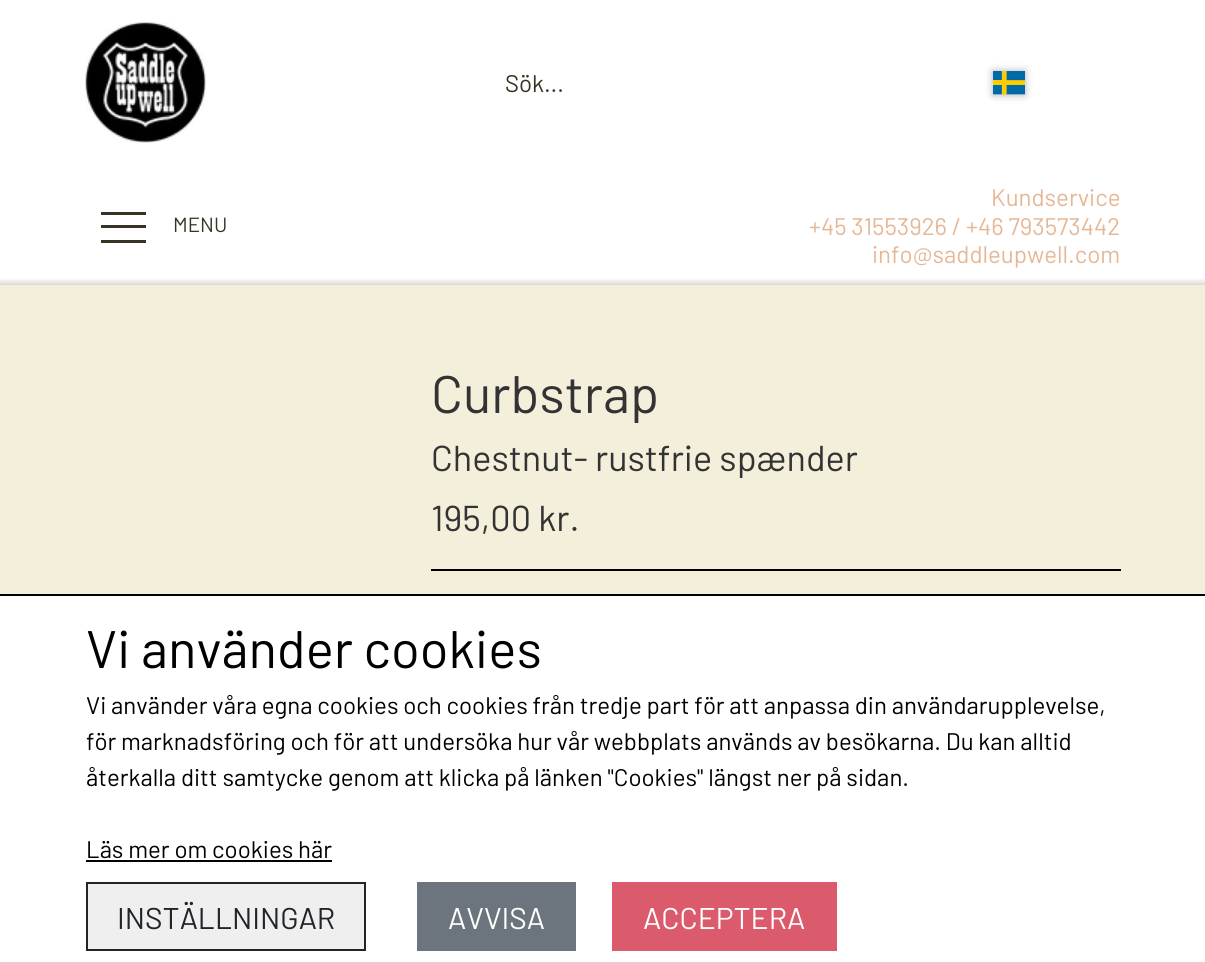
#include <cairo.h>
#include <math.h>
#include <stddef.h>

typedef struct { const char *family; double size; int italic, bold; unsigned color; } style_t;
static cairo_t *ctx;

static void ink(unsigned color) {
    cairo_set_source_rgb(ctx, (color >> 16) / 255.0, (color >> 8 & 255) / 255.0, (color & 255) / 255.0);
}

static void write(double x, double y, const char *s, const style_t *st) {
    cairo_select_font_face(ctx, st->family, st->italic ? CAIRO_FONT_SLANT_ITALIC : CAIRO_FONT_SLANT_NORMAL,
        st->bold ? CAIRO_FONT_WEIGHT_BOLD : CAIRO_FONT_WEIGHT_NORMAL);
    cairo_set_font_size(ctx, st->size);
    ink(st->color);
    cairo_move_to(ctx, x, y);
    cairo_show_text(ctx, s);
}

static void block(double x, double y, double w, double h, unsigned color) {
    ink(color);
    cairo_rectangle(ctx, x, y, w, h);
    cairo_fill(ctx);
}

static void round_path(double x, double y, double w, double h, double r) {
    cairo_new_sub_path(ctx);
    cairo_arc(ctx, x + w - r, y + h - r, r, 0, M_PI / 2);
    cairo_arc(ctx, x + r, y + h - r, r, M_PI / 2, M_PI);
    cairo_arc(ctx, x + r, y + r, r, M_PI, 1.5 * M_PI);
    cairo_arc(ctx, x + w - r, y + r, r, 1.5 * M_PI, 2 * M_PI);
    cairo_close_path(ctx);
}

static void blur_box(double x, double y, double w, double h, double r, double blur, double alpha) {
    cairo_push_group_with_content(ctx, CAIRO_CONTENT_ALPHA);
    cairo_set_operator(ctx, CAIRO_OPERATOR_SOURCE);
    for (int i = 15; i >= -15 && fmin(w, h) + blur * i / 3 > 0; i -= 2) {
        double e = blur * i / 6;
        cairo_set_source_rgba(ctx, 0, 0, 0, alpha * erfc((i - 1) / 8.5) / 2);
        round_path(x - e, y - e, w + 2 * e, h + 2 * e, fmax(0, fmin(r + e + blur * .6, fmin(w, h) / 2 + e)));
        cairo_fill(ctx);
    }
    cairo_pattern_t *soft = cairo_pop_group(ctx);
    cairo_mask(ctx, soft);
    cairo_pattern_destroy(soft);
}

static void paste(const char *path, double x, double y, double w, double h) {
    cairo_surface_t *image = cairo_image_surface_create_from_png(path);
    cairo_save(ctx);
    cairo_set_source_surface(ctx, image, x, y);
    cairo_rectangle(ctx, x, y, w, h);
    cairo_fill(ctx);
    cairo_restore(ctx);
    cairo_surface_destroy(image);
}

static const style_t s1 = {"Barlow", 24, 0, 0, 0x383323};
static const style_t s2 = {"Barlow", 20.5, 0, 0, 0x383323};
static const style_t s3 = {"Barlow", 24, 0, 0, 0xe6b794};
static const style_t s4 = {"Barlow", 52.75, 0, 0, 0x333333};
static const style_t s5 = {"Barlow", 36, 0, 0, 0x333333};
static const style_t s6 = {"Barlow", 52.75, 0, 0, 0x000000};
static const style_t s7 = {"Barlow", 24, 0, 0, 0x000000};
static const style_t s8 = {"Barlow", 30, 0, 0, 0x212529};
static const style_t s9 = {"Barlow", 30, 0, 0, 0xffffff};

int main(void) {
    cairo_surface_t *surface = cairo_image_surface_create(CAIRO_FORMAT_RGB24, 1205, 962);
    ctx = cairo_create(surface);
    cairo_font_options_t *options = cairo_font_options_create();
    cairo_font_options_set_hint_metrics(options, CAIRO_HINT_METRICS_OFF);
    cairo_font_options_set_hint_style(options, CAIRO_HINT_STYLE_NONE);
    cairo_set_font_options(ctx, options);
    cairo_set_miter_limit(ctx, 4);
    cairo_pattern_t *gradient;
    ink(0xf4efdb);
    cairo_paint(ctx);
    block(0, 0, 1205, 278, 0xffffff);
    paste("pic1.png", 85, 22, 121, 121);
    write(505, 92, "Sök...", &s1);
    ink(0x000000);
    blur_box(993, 71, 32, 24, 0, 4, 0.3);
    paste("pic2.png", 993, 71, 32, 24);
    block(101, 212, 45, 3, 0x383323);
    block(101, 225, 45, 3, 0x383323);
    block(101, 240, 45, 3, 0x383323);
    write(173, 232, "MENU", &s2);
    write(991, 206, "Kundservice", &s3);
    write(809, 235, "+45 31553926 / +46 793573442", &s3);
    write(872, 263, "info@saddleupwell.com", &s3);
    gradient = cairo_pattern_create_linear(603, 285, 603, 278);
    cairo_pattern_add_color_stop_rgba(gradient, 0, 0.851, 0.851, 0.851, 1);
    cairo_pattern_add_color_stop_rgba(gradient, 1, 1, 1, 1, 1);
    cairo_set_source(ctx, gradient);
    cairo_pattern_destroy(gradient);
    cairo_rectangle(ctx, 0, 278, 1205, 7);
    cairo_fill(ctx);
    cairo_save(ctx);
    cairo_rectangle(ctx, 431, 360, 690, 63);
    cairo_clip(ctx);
    write(431, 413, "Curbstrap", &s4);
    cairo_restore(ctx);
    write(431, 471, "Chestnut- rustfrie spænder", &s5);
    write(431, 531, "195,00 kr.", &s5);
    block(431, 569, 690, 2, 0x000000);
    block(0, 596, 1205, 366, 0xffffff);
    block(0, 594, 1205, 2, 0x000000);
    write(86, 668, "Vi använder cookies", &s6);
    write(86, 714, "Vi använder våra egna cookies och cookies från tredje part för att anpassa din användarupplevelse,", &s7);
    write(86, 750, "för marknadsföring och för att undersöka hur vår webbplats används av besökarna. Du kan alltid", &s7);
    write(86, 786, "återkalla ditt samtycke genom att klicka på länken \"Cookies\" längst ner på sidan.", &s7);
    write(86, 858, "Läs mer om cookies här", &s7);
    block(86, 860, 246, 2, 0x000000);
    ink(0xefefef);
    cairo_rectangle(ctx, 87, 883, 278, 67);
    cairo_fill_preserve(ctx);
    ink(0x212529);
    cairo_stroke(ctx);
    write(117, 929, "INSTÄLLNINGAR", &s8);
    block(417, 882, 159, 69, 0x6c757d);
    write(448, 929, "AVVISA", &s9);
    block(612, 882, 225, 69, 0xdb5a6b);
    write(643, 929, "ACCEPTERA", &s9);
    cairo_surface_write_to_png(surface, "screenshot.png");
    cairo_font_options_destroy(options);
    cairo_destroy(ctx);
    cairo_surface_destroy(surface);
    return 0;
}
